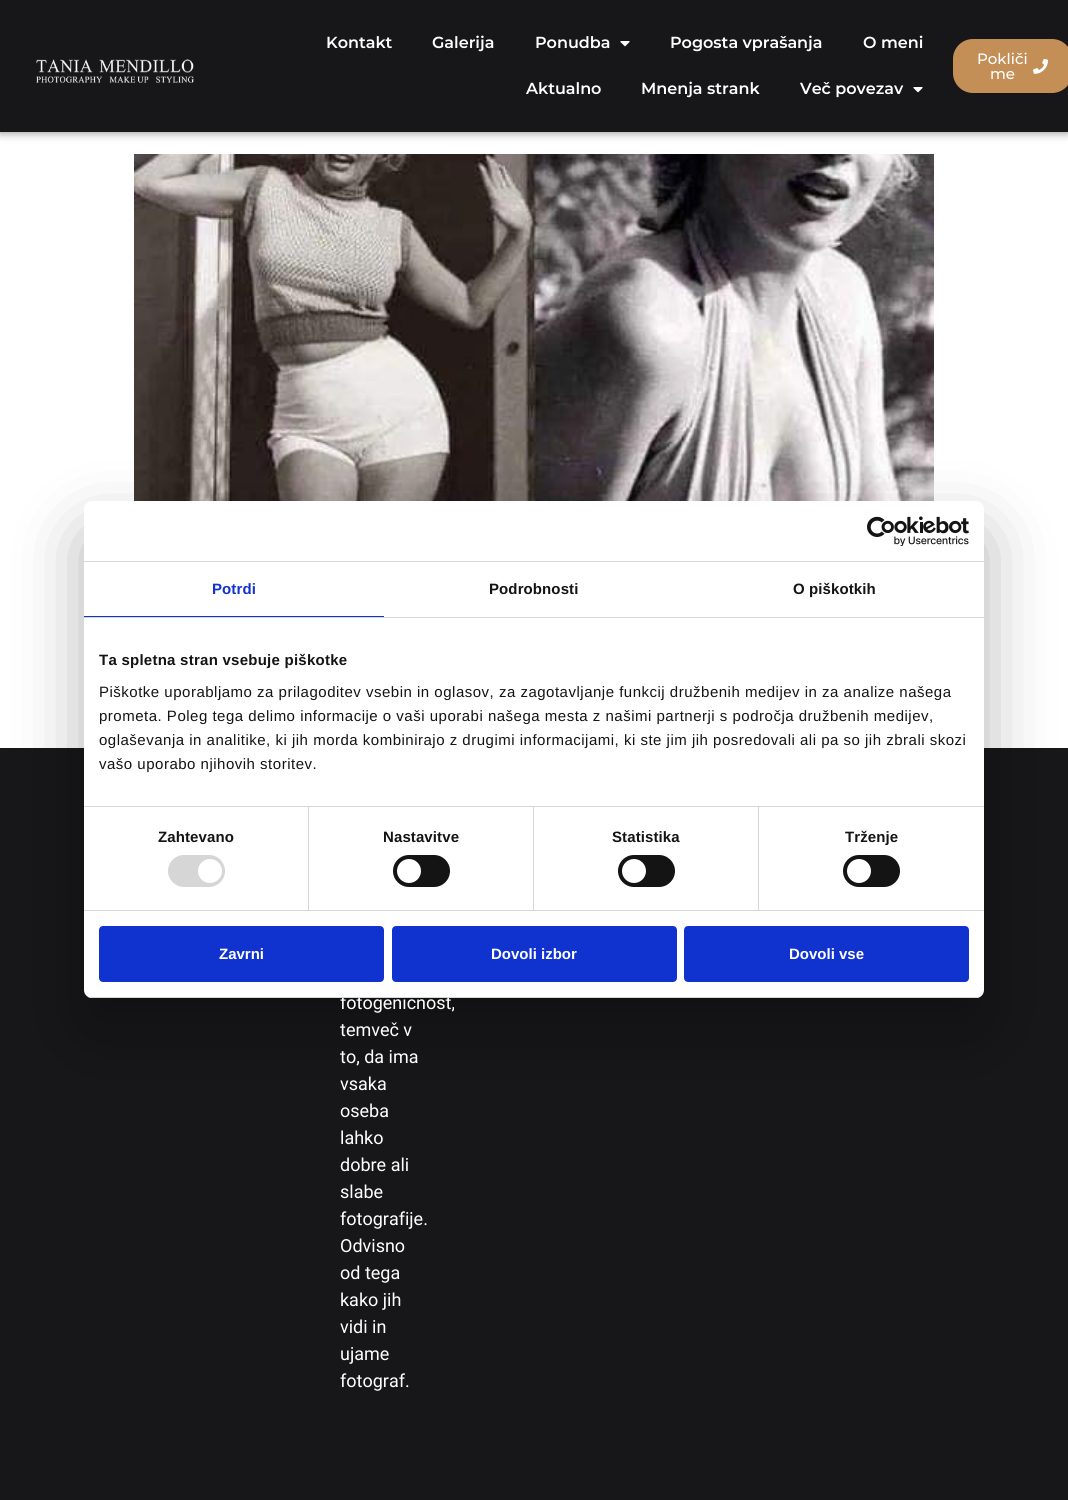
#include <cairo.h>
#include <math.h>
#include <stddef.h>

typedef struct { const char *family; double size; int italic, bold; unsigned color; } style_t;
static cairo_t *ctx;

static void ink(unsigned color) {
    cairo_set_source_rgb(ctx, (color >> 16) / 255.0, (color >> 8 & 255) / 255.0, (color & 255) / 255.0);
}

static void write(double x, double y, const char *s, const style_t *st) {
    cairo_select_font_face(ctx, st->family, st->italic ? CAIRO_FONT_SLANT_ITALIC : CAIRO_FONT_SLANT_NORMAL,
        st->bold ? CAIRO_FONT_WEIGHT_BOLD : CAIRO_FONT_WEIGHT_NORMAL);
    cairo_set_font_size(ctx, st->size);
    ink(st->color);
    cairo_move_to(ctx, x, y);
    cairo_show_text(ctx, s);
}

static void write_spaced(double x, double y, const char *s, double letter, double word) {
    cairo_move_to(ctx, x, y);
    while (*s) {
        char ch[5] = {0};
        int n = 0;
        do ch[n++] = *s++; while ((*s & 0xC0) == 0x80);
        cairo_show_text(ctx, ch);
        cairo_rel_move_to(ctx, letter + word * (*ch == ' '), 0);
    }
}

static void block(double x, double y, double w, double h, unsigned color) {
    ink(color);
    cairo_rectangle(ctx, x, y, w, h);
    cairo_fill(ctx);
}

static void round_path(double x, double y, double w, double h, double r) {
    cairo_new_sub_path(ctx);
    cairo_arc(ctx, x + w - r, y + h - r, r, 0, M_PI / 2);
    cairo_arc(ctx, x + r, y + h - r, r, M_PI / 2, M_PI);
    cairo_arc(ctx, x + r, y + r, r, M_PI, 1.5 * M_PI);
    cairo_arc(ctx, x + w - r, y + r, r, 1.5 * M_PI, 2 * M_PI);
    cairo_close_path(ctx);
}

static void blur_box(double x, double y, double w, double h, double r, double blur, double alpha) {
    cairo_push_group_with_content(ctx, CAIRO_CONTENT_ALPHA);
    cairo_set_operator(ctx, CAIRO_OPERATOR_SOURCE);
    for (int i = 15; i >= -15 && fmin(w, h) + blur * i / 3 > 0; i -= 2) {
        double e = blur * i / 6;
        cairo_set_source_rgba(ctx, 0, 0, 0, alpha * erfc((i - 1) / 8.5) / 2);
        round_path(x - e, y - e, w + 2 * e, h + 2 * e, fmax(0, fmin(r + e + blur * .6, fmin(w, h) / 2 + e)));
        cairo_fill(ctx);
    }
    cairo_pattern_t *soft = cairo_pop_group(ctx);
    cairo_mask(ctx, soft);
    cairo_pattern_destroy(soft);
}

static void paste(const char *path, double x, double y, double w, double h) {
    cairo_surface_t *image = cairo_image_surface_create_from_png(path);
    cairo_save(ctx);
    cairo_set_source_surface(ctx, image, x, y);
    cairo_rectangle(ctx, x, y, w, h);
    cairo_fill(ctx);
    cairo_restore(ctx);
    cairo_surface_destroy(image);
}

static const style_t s1 = {"Montserrat SemiBold", 16, 0, 0, 0xffffff};
static const style_t s2 = {"Montserrat Medium", 15, 0, 0, 0xffffff};
static const style_t s3 = {"Roboto", 18, 0, 0, 0xffffff};
static const style_t s4 = {"Liberation Sans", 15, 0, 1, 0xffffff};

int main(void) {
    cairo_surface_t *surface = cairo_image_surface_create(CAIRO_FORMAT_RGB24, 1068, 1500);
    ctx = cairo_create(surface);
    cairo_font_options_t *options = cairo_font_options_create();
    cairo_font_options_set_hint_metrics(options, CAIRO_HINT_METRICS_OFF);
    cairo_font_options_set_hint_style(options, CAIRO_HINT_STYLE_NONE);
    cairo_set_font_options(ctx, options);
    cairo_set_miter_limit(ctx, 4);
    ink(0xffffff);
    cairo_paint(ctx);
    ink(0x000000);
    blur_box(0, 0, 1068, 132, 0, 5, 0.5);
    block(0, 0, 1068, 132, 0x17171a);
    paste("pic1.png", 36, 59, 158, 24);
    write(326, 48, "Kontakt", &s1);
    write(432, 48, "Galerija", &s1);
    write(535, 48, "Ponudba", &s1);
    paste("pic2.png", 620, 41, 10, 6);
    write(670, 48, "Pogosta vprašanja", &s1);
    write(863, 48, "O meni", &s1);
    write(526, 94, "Aktualno", &s1);
    write(641, 94, "Mnenja strank", &s1);
    write(800, 94, "Več povezav", &s1);
    paste("pic2.png", 913, 87, 10, 6);
    ink(0xc48f56);
    round_path(953, 39, 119, 54, 20);
    cairo_fill(ctx);
    write(977, 64, "Pokliči", &s2);
    write(990, 79, "me", &s2);
    paste("pic3.png", 1033, 58, 15, 16);
    paste("pic4.png", 134, 154, 800, 347);
    block(0, 748, 1068, 752, 0x17171a);
    ink(0x000000);
    blur_box(84, 533, 900, 497, 8, 34, 0.3);
    ink(0xffffff);
    round_path(84, 501, 900, 497, 8);
    cairo_fill(ctx);
    block(84, 561, 900, 1, 0xd6d6d6);
    paste("pic5.png", 867, 516, 102, 30);
    block(84, 617, 900, 1, 0xd6d6d6);
    block(84, 616, 300, 1, 0x1032cf);
    cairo_select_font_face(ctx, "Liberation Sans", CAIRO_FONT_SLANT_NORMAL, CAIRO_FONT_WEIGHT_BOLD);
    write_spaced(212, 594, "Potrdi", 0.1, 0);
    ink(0x141414);
    write_spaced(489, 594, "Podrobnosti", 0.1, 0);
    write_spaced(793, 594, "O piškotkih", 0.1, 0);
    block(84, 806, 900, 1, 0xd6d6d6);
    ink(0x141414);
    write_spaced(99, 665, "Ta spletna stran vsebuje piškotke", 0.25, 0);
    cairo_select_font_face(ctx, "Liberation Sans", CAIRO_FONT_SLANT_NORMAL, CAIRO_FONT_WEIGHT_NORMAL);
    write_spaced(99, 697, "Piškotke uporabljamo za prilagoditev vsebin in oglasov, za zagotavljanje funkcij družbenih medijev in za analize našega", 0.5, 0);
    write_spaced(99, 721, "prometa. Poleg tega delimo informacije o vaši uporabi našega mesta z našimi partnerji s področja družbenih medijev,", 0.5, 0);
    write_spaced(99, 745, "oglaševanja in analitike, ki jih morda kombinirajo z drugimi informacijami, ki ste jim jih posredovali ali pa so jih zbrali skozi", 0.5, 0);
    write_spaced(99, 769, "vašo uporabo njihovih storitev.", 0.5, 0);
    block(84, 910, 900, 1, 0xd6d6d6);
    block(308, 807, 1, 103, 0xd6d6d6);
    cairo_select_font_face(ctx, "Liberation Sans", CAIRO_FONT_SLANT_NORMAL, CAIRO_FONT_WEIGHT_BOLD);
    ink(0x141414);
    write_spaced(158, 842, "Zahtevano", 0.1, 0);
    ink(0xd6d6d6);
    round_path(168, 855, 57, 32, 16);
    cairo_fill(ctx);
    ink(0xffffff);
    cairo_arc(ctx, 210, 871, 12, 0, 2 * M_PI);
    cairo_fill(ctx);
    block(533, 807, 1, 103, 0xd6d6d6);
    ink(0x141414);
    write_spaced(383, 842, "Nastavitve", 0.1, 0);
    round_path(393, 855, 57, 32, 16);
    cairo_fill(ctx);
    ink(0xffffff);
    cairo_arc(ctx, 409, 871, 12, 0, 2 * M_PI);
    cairo_fill(ctx);
    block(758, 807, 1, 103, 0xd6d6d6);
    ink(0x141414);
    write_spaced(612, 842, "Statistika", 0.1, 0);
    round_path(618, 855, 57, 32, 16);
    cairo_fill(ctx);
    ink(0xffffff);
    cairo_arc(ctx, 634, 871, 12, 0, 2 * M_PI);
    cairo_fill(ctx);
    ink(0x141414);
    write_spaced(845, 842, "Trženje", 0.1, 0);
    round_path(843, 855, 57, 32, 16);
    cairo_fill(ctx);
    ink(0xffffff);
    cairo_arc(ctx, 859, 871, 12, 0, 2 * M_PI);
    cairo_fill(ctx);
    write(340, 1009, "fotogeničnost,", &s3);
    cairo_save(ctx);
    round_path(84, 501, 900, 497, 8);
    cairo_clip(ctx);
    block(84, 997, 900, 1, 0xd6d6d6);
    cairo_restore(ctx);
    ink(0x1032cf);
    round_path(100, 927, 283, 54, 3);
    cairo_fill_preserve(ctx);
    cairo_stroke(ctx);
    write(219, 959, "Zavrni", &s4);
    ink(0x1032cf);
    round_path(393, 927, 283, 54, 3);
    cairo_fill_preserve(ctx);
    cairo_stroke(ctx);
    write(491, 959, "Dovoli izbor", &s4);
    ink(0x1032cf);
    round_path(685, 927, 283, 54, 3);
    cairo_fill_preserve(ctx);
    cairo_stroke(ctx);
    write(789, 959, "Dovoli vse", &s4);
    write(340, 1036, "temveč v", &s3);
    write(340, 1063, "to, da ima", &s3);
    write(340, 1090, "vsaka", &s3);
    write(340, 1117, "oseba", &s3);
    write(340, 1144, "lahko", &s3);
    write(340, 1171, "dobre ali", &s3);
    write(340, 1198, "slabe", &s3);
    write(340, 1225, "fotografije.", &s3);
    write(340, 1252, "Odvisno", &s3);
    write(340, 1279, "od tega", &s3);
    write(340, 1306, "kako jih", &s3);
    write(340, 1333, "vidi in", &s3);
    write(340, 1360, "ujame", &s3);
    write(340, 1387, "fotograf.", &s3);
    cairo_surface_write_to_png(surface, "screenshot.png");
    cairo_font_options_destroy(options);
    cairo_destroy(ctx);
    cairo_surface_destroy(surface);
    return 0;
}
